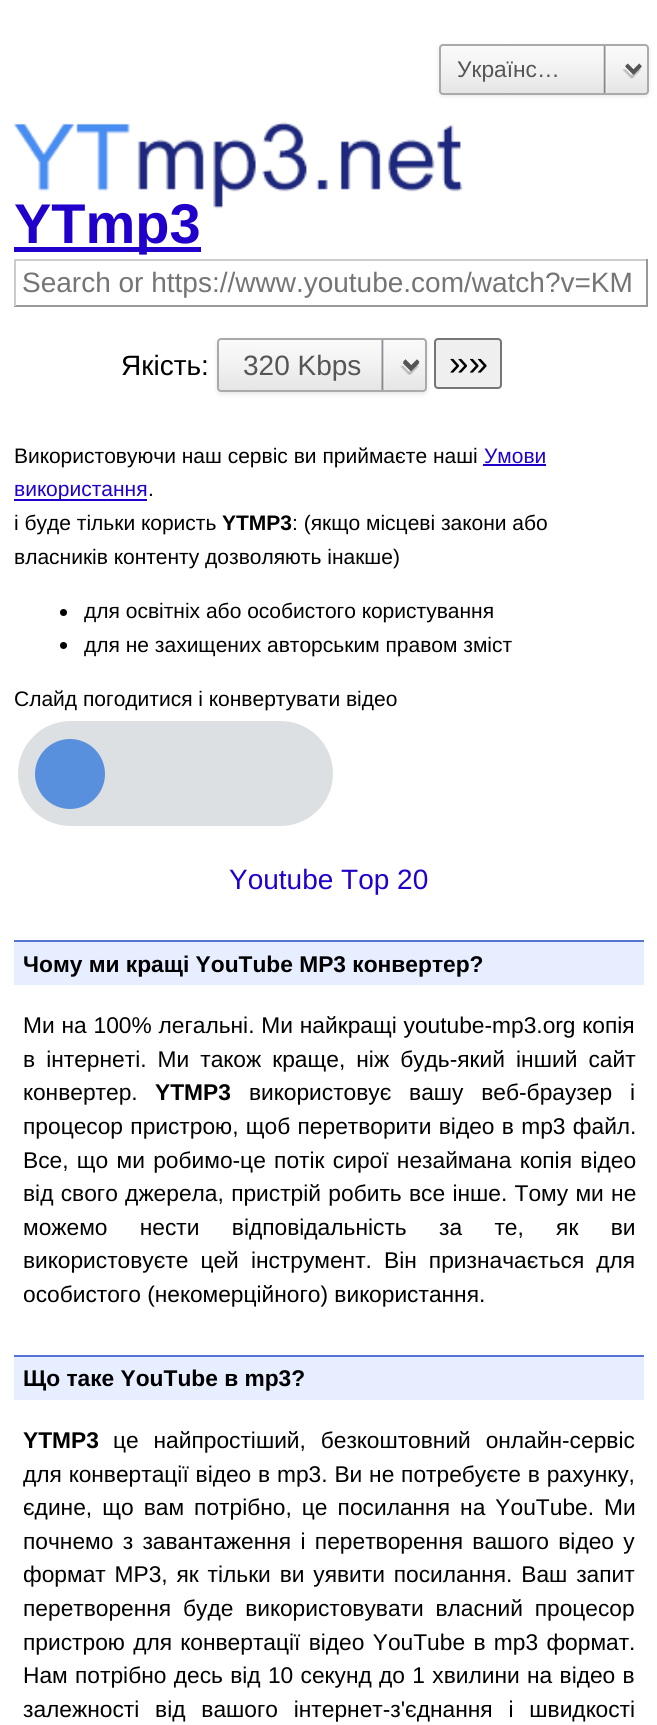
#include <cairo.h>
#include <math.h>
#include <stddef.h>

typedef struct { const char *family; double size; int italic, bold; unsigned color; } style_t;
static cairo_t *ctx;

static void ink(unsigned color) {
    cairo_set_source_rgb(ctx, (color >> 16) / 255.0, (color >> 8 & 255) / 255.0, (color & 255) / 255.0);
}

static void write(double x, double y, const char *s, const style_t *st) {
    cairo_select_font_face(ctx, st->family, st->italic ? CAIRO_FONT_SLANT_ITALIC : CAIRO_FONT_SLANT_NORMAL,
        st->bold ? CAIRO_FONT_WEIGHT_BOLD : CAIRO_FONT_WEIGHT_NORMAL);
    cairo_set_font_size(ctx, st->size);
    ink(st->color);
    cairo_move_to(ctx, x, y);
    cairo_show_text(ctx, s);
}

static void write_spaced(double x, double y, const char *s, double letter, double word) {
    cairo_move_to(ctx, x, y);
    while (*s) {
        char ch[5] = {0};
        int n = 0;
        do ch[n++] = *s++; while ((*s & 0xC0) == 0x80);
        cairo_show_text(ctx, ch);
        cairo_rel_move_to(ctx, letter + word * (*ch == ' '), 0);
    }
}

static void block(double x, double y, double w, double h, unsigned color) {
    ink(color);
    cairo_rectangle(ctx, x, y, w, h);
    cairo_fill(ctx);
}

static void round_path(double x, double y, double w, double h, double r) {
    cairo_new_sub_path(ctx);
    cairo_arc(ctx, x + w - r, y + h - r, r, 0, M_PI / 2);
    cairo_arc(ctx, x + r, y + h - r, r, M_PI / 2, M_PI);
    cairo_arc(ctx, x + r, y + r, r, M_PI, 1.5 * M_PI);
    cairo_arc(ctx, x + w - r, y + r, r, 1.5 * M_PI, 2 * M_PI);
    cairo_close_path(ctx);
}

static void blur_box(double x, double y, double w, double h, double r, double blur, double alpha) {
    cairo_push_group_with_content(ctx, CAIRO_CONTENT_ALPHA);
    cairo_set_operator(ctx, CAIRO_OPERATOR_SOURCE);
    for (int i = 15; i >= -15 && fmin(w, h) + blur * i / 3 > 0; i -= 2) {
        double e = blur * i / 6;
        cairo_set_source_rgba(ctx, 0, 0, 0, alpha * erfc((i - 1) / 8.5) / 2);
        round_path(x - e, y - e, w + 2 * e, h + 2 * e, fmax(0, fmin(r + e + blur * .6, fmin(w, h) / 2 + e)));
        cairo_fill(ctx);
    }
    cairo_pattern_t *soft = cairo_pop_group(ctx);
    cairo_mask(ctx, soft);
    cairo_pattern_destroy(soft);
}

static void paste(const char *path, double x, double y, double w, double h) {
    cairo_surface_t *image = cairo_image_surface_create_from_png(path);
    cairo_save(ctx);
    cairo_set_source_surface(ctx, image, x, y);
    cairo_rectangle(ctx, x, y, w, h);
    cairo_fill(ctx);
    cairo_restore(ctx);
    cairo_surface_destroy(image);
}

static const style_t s1 = {"Liberation Sans", 22.75, 0, 0, 0x555555};
static const style_t s2 = {"Liberation Sans", 56, 0, 1, 0x2200cc};
static const style_t s3 = {"Liberation Sans", 28, 0, 0, 0x757575};
static const style_t s4 = {"Liberation Sans", 28, 0, 0, 0x000000};
static const style_t s5 = {"Liberation Sans", 28, 0, 0, 0x555555};
static const style_t s6 = {"Liberation Sans", 35, 0, 0, 0x000000};
static const style_t s7 = {"Liberation Sans", 21, 0, 0, 0x000000};
static const style_t s8 = {"Liberation Sans", 21, 0, 0, 0x2200cc};
static const style_t s9 = {"Liberation Sans", 21, 0, 1, 0x000000};
static const style_t s10 = {"Liberation Sans", 28, 0, 0, 0x2200cc};
static const style_t s11 = {"Liberation Sans", 22.75, 0, 1, 0x000000};
static const style_t s12 = {"Liberation Sans", 22.75, 0, 0, 0x000000};

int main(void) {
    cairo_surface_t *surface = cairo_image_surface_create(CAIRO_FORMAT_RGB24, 657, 1725);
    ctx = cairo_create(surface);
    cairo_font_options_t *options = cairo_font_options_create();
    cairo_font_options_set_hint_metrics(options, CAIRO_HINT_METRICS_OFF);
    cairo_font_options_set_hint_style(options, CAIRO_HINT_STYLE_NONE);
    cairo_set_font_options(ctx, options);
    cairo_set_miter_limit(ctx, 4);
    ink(0xffffff);
    cairo_paint(ctx);
    ink(0x000000);
    blur_box(439, 46, 210, 50, 4, 2.5, 0.1);
    paste("pic1.png", 441, 43, 207, 50);
    round_path(440, 45, 208, 49, 3);
    ink(0xaaaaaa);
    cairo_stroke(ctx);
    cairo_new_path(ctx);
    cairo_move_to(ctx, 626.5, 65.5);
    cairo_line_to(ctx, 633.5, 72.5);
    cairo_line_to(ctx, 640.5, 65.5);
    ink(0x555555);
    cairo_set_line_width(ctx, 3.5);
    cairo_stroke(ctx);
    write(457, 77, "Українс…", &s1);
    paste("pic2.png", 14, 122, 449, 87);
    block(14, 247, 187, 5, 0x2200cc);
    write(14, 243, "YTmp3", &s2);
    block(14, 259, 634, 2, 0xcccccc);
    block(646, 259, 2, 47, 0x999999);
    block(14, 305, 634, 2, 0x999999);
    block(14, 259, 2, 47, 0xcccccc);
    write(22, 292, "Search or https://www.youtube.com/watch?v=KM", &s3);
    write(121, 375, "Якість:", &s4);
    ink(0x000000);
    blur_box(217, 340, 210, 54, 4, 2.5, 0.1);
    paste("pic3.png", 219, 340, 206, 50);
    round_path(218, 339, 208, 52, 3);
    ink(0xaaaaaa);
    cairo_set_line_width(ctx, 2);
    cairo_stroke(ctx);
    cairo_new_path(ctx);
    cairo_move_to(ctx, 404, 362);
    cairo_line_to(ctx, 411, 369);
    cairo_line_to(ctx, 418, 362);
    ink(0x555555);
    cairo_set_line_width(ctx, 3.5);
    cairo_stroke(ctx);
    write(243, 375, "320 Kbps", &s5);
    ink(0xefefef);
    round_path(435, 339, 66, 49, 3);
    cairo_fill_preserve(ctx);
    ink(0x767676);
    cairo_set_line_width(ctx, 2);
    cairo_stroke(ctx);
    write(449, 375, "»»", &s6);
    write(14, 463, "Використовуючи наш сервіс ви приймаєте наші", &s7);
    write(484, 463, "Умови", &s8);
    block(483, 464, 63, 2, 0x2200cc);
    block(14, 499, 133, 2, 0x2200cc);
    write(14, 496, "використання", &s8);
    write(148, 496, ".", &s7);
    write(14, 530, "і буде тільки користь", &s7);
    write(222, 530, "YTMP3", &s9);
    write(292, 530, ": (якщо місцеві закони або", &s7);
    write(14, 564, "власників контенту дозволяють інакше)", &s7);
    cairo_new_path(ctx);
    cairo_arc(ctx, 63.5, 612.5, 3.5, 0, 2 * M_PI);
    cairo_fill(ctx);
    write(84, 618, "для освітніх або особистого користування", &s7);
    cairo_new_path(ctx);
    cairo_arc(ctx, 63.5, 645.5, 3.5, 0, 2 * M_PI);
    cairo_fill(ctx);
    write(84, 652, "для не захищених авторським правом зміст", &s7);
    write(14, 706, "Слайд погодитися і конвертувати відео", &s7);
    ink(0xdde0e3);
    round_path(18, 721, 315, 105, 52.5);
    cairo_fill(ctx);
    ink(0x5990dd);
    cairo_arc(ctx, 70, 774, 35, 0, 2 * M_PI);
    cairo_fill(ctx);
    write(229, 889, "Youtube Top 20", &s10);
    block(14, 942, 630, 43, 0xe7eeff);
    block(14, 940, 630, 2, 0x5573d3);
    write(23, 972, "Чому ми кращі YouTube MP3 конвертер?", &s11);
    cairo_select_font_face(ctx, "Liberation Sans", CAIRO_FONT_SLANT_NORMAL, CAIRO_FONT_WEIGHT_NORMAL);
    write_spaced(23, 1033, "Ми на 100% легальні. Ми найкращі youtube-mp3.org копія", 0, 0.5);
    write_spaced(23, 1067, "в інтернеті. Ми також краще, ніж будь-який інший сайт", 0, 4.75);
    write(23, 1100, "конвертер.", &s12);
    write(155, 1100, "YTMP3", &s11);
    cairo_select_font_face(ctx, "Liberation Sans", CAIRO_FONT_SLANT_NORMAL, CAIRO_FONT_WEIGHT_NORMAL);
    write_spaced(249, 1100, "використовує вашу веб-браузер і", 0, 11.5);
    write_spaced(23, 1134, "процесор пристрою, щоб перетворити відео в mp3 файл.", 0, 1);
    write_spaced(23, 1168, "Все, що ми робимо-це потік сирої незаймана копія відео", 0, 2);
    write_spaced(23, 1201, "від свого джерела, пристрій робить все інше. Тому ми не", 0, 1);
    write_spaced(23, 1235, "можемо нести відповідальність за те, як ви", 0, 26);
    write_spaced(23, 1268, "використовуєте цей інструмент. Він призначається для", 0, 5.75);
    write(23, 1302, "особистого (некомерційного) використання.", &s12);
    block(14, 1357, 630, 43, 0xe7eeff);
    block(14, 1355, 630, 2, 0x5573d3);
    write(23, 1386, "Що таке YouTube в mp3?", &s11);
    write(23, 1448, "YTMP3", &s11);
    cairo_select_font_face(ctx, "Liberation Sans", CAIRO_FONT_SLANT_NORMAL, CAIRO_FONT_WEIGHT_NORMAL);
    write_spaced(113, 1448, "це найпростіший, безкоштовний онлайн-сервіс", 0, 8.5);
    write_spaced(23, 1482, "для конвертації відео в mp3. Ви не потребуєте в рахунку,", 0, 0.5);
    write_spaced(23, 1515, "єдине, що вам потрібно, це посилання на YouTube. Ми", 0, 3.75);
    write_spaced(23, 1549, "почнемо з завантаження і перетворення вашого відео у", 0, 3);
    write_spaced(23, 1582, "формат MP3, як тільки ви уявити посилання. Ваш запит", 0, 2.5);
    write_spaced(23, 1616, "перетворення буде використовувати власний процесор", 0, 5.5);
    write_spaced(23, 1650, "пристрою для конвертації відео YouTube в mp3 формат.", 0, 2);
    write_spaced(23, 1683, "Нам потрібно десь від 10 секунд до 1 хвилини на відео в", 0, 1);
    write_spaced(23, 1717, "залежності від вашого інтернет-з'єднання і швидкості", 0, 9.5);
    cairo_surface_write_to_png(surface, "screenshot.png");
    cairo_font_options_destroy(options);
    cairo_destroy(ctx);
    cairo_surface_destroy(surface);
    return 0;
}
